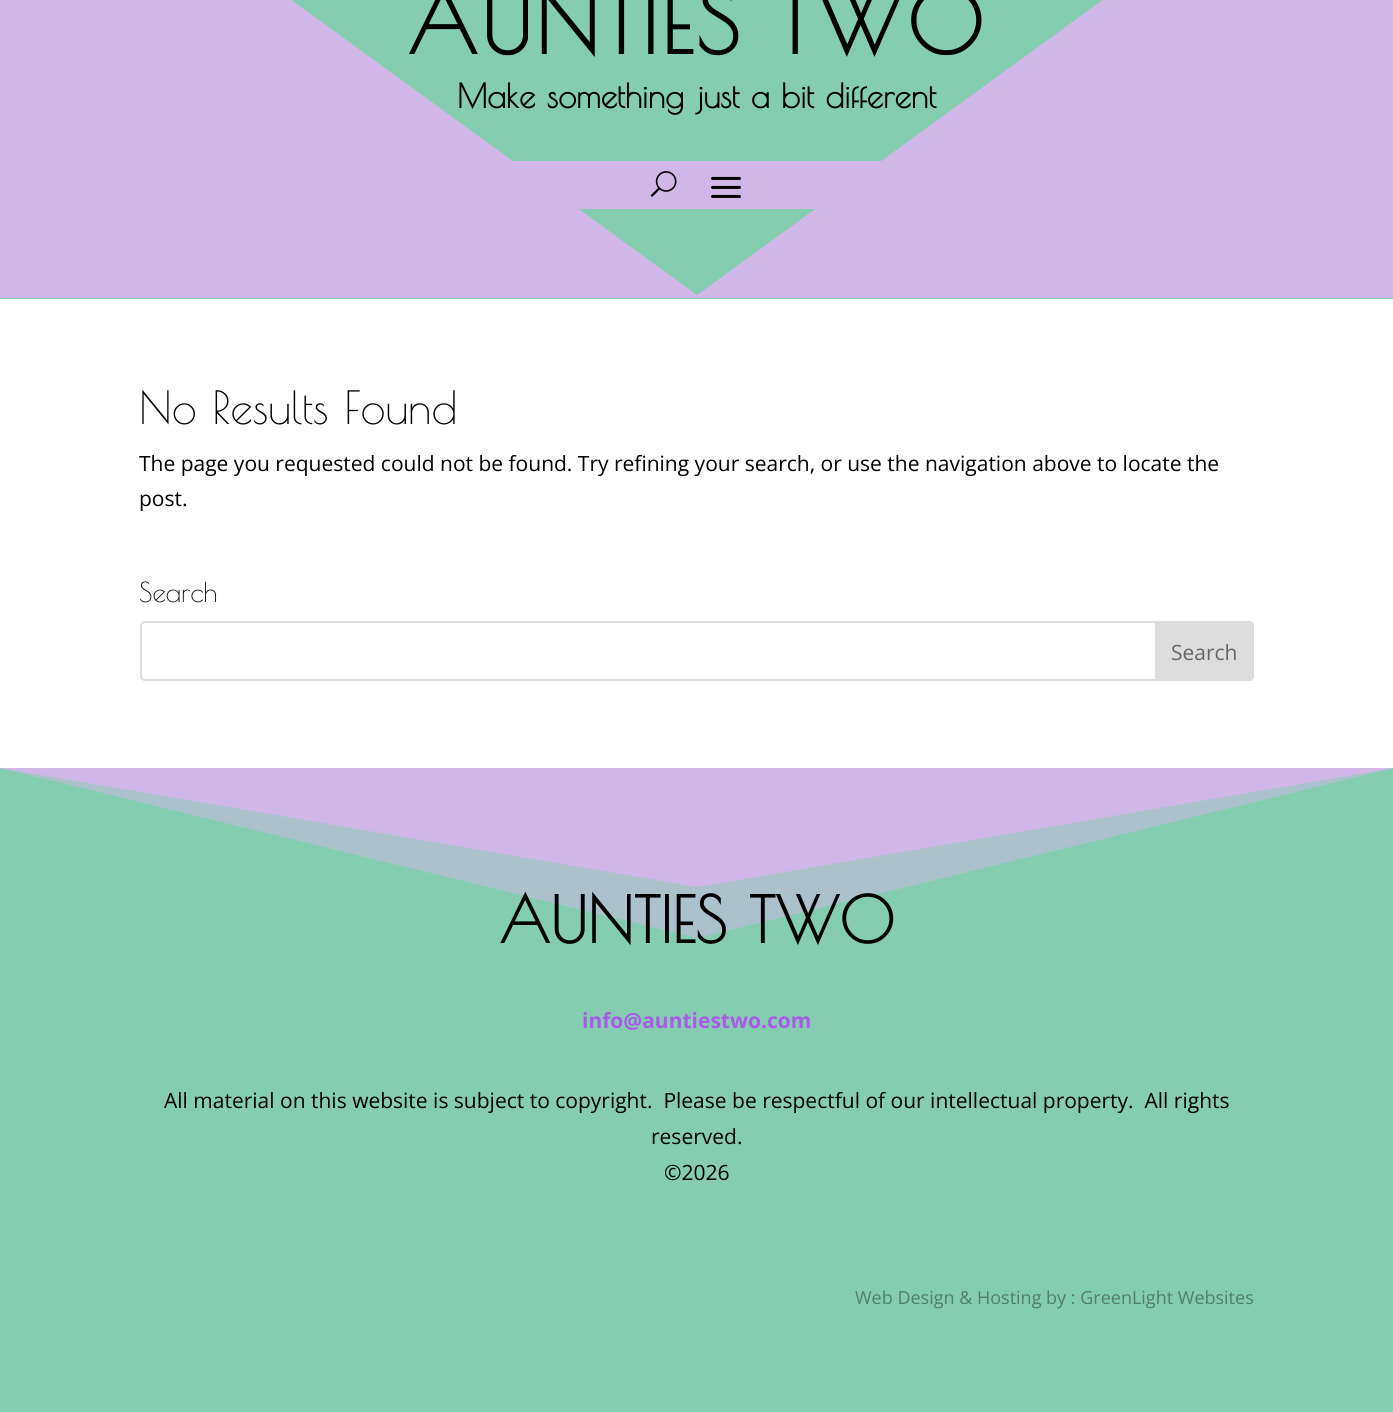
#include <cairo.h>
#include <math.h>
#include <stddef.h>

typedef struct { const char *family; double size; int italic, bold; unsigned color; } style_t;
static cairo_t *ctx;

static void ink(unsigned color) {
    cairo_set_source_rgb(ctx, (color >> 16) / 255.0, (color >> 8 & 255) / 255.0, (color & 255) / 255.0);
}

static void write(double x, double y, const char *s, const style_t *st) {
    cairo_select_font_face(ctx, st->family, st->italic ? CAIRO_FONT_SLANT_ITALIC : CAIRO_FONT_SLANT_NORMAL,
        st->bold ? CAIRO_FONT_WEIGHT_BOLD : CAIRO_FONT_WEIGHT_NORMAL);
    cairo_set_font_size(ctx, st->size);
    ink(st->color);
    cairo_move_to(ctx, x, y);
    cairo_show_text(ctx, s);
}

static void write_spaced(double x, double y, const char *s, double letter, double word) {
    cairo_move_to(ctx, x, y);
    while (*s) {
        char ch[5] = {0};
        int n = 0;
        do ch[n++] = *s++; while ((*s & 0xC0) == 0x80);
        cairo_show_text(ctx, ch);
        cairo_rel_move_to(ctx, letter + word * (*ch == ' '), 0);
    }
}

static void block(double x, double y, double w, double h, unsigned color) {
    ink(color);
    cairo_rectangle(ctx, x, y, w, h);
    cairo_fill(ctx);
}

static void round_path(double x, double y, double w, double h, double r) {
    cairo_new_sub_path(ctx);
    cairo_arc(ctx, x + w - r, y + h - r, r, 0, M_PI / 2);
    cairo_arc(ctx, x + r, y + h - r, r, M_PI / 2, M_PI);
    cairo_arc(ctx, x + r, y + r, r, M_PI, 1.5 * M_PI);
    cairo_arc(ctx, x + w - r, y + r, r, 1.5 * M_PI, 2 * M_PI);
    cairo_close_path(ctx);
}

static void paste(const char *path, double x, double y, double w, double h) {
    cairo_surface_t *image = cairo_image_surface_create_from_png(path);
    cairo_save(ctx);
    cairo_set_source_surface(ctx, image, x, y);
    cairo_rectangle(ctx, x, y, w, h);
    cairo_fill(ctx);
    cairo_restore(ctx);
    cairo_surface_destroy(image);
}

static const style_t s1 = {"Poiret One", 33, 0, 1, 0x000000};
static const style_t s2 = {"Poiret One", 45, 0, 0, 0x000000};
static const style_t s3 = {"Open Sans", 21, 0, 0, 0x000000};
static const style_t s4 = {"Poiret One", 27, 0, 0, 0x000000};
static const style_t s5 = {"Open Sans", 21, 0, 0, 0x666666};
static const style_t s6 = {"Poiret One", 63, 0, 1, 0x000000};
static const style_t s7 = {"Open Sans", 21, 0, 1, 0xaa5ae8};
static const style_t s8 = {"Open Sans", 18, 0, 0, 0x517d6c};

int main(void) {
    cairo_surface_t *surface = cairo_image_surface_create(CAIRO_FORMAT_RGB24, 1393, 1412);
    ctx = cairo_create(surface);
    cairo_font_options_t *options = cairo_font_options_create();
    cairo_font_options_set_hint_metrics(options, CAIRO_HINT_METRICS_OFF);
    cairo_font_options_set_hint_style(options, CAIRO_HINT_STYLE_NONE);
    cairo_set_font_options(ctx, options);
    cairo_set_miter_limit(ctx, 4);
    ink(0x85cdb1);
    cairo_paint(ctx);
    ink(0xd0b7e8);
    cairo_new_path(ctx);
    cairo_move_to(ctx, 697, 295);
    cairo_line_to(ctx, 0, -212);
    cairo_line_to(ctx, 0, 298);
    cairo_line_to(ctx, 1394, 298);
    cairo_line_to(ctx, 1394, -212);
    cairo_close_path(ctx);
    cairo_fill(ctx);
    cairo_select_font_face(ctx, "Poiret One", CAIRO_FONT_SLANT_NORMAL, CAIRO_FONT_WEIGHT_BOLD);
    cairo_set_font_size(ctx, 87);
    ink(0x000000);
    write_spaced(407, 54, "AUNTIES TWO", 3, 0);
    write(457, 108, "Make something just a bit different", &s1);
    ink(0xd0b7e8);
    round_path(29, 161, 1336, 48, 15);
    cairo_fill(ctx);
    paste("pic1.png", 650, 171, 27, 26);
    paste("pic2.png", 711, 176, 30, 22);
    block(0, 299, 1393, 469, 0xffffff);
    write(139, 424, "No Results Found", &s2);
    write(139, 471, "The page you requested could not be found. Try refining your search, or use the navigation above to locate the", &s3);
    write(139, 506, "post.", &s3);
    write(139, 602, "Search", &s4);
    round_path(141, 622, 1112, 58, 4);
    ink(0xdddddd);
    cairo_stroke(ctx);
    cairo_new_path(ctx);
    cairo_move_to(ctx, 1156, 622);
    cairo_line_to(ctx, 1249, 622);
    cairo_curve_to(ctx, 1251, 622, 1253, 624, 1253, 626);
    cairo_line_to(ctx, 1253, 676);
    cairo_curve_to(ctx, 1253, 678, 1251, 680, 1249, 680);
    cairo_line_to(ctx, 1156, 680);
    cairo_close_path(ctx);
    cairo_fill_preserve(ctx);
    cairo_stroke(ctx);
    write(1171, 660, "Search", &s5);
    ink(0xabc2cc);
    cairo_new_path(ctx);
    cairo_move_to(ctx, 697, 938);
    cairo_line_to(ctx, 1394, 768);
    cairo_line_to(ctx, 0, 768);
    cairo_close_path(ctx);
    cairo_fill(ctx);
    ink(0xd0b7e8);
    cairo_new_path(ctx);
    cairo_move_to(ctx, 697, 887);
    cairo_line_to(ctx, 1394, 768);
    cairo_line_to(ctx, 0, 768);
    cairo_close_path(ctx);
    cairo_fill(ctx);
    write(499, 943, "AUNTIES TWO", &s6);
    write(582, 1028, "info@auntiestwo.com", &s7);
    write(164, 1108, "All material on this website is subject to copyright.  Please be respectful of our intellectual property.  All rights", &s3);
    write(651, 1144, "reserved.", &s3);
    write(664, 1180, "©2026", &s3);
    write(855, 1304, "Web Design & Hosting by : GreenLight Websites", &s8);
    cairo_surface_write_to_png(surface, "screenshot.png");
    cairo_font_options_destroy(options);
    cairo_destroy(ctx);
    cairo_surface_destroy(surface);
    return 0;
}
